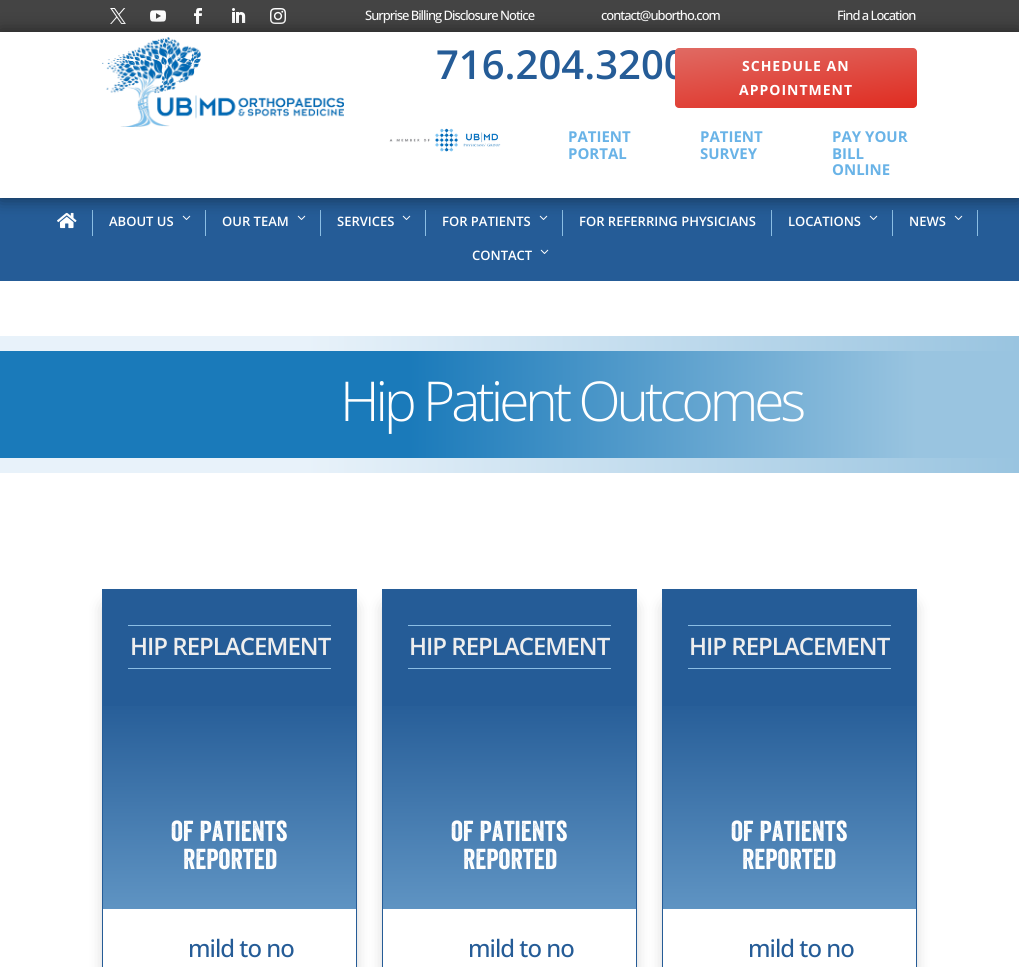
#include <cairo.h>
#include <math.h>
#include <stddef.h>

typedef struct { const char *family; double size; int italic, bold; unsigned color; } style_t;
static cairo_t *ctx;

static void ink(unsigned color) {
    cairo_set_source_rgb(ctx, (color >> 16) / 255.0, (color >> 8 & 255) / 255.0, (color & 255) / 255.0);
}

static void write(double x, double y, const char *s, const style_t *st) {
    cairo_select_font_face(ctx, st->family, st->italic ? CAIRO_FONT_SLANT_ITALIC : CAIRO_FONT_SLANT_NORMAL,
        st->bold ? CAIRO_FONT_WEIGHT_BOLD : CAIRO_FONT_WEIGHT_NORMAL);
    cairo_set_font_size(ctx, st->size);
    ink(st->color);
    cairo_move_to(ctx, x, y);
    cairo_show_text(ctx, s);
}

static void write_spaced(double x, double y, const char *s, double letter, double word) {
    cairo_move_to(ctx, x, y);
    while (*s) {
        char ch[5] = {0};
        int n = 0;
        do ch[n++] = *s++; while ((*s & 0xC0) == 0x80);
        cairo_show_text(ctx, ch);
        cairo_rel_move_to(ctx, letter + word * (*ch == ' '), 0);
    }
}

static void block(double x, double y, double w, double h, unsigned color) {
    ink(color);
    cairo_rectangle(ctx, x, y, w, h);
    cairo_fill(ctx);
}

static void round_path(double x, double y, double w, double h, double r) {
    cairo_new_sub_path(ctx);
    cairo_arc(ctx, x + w - r, y + h - r, r, 0, M_PI / 2);
    cairo_arc(ctx, x + r, y + h - r, r, M_PI / 2, M_PI);
    cairo_arc(ctx, x + r, y + r, r, M_PI, 1.5 * M_PI);
    cairo_arc(ctx, x + w - r, y + r, r, 1.5 * M_PI, 2 * M_PI);
    cairo_close_path(ctx);
}

static void blur_box(double x, double y, double w, double h, double r, double blur, double alpha) {
    cairo_push_group_with_content(ctx, CAIRO_CONTENT_ALPHA);
    cairo_set_operator(ctx, CAIRO_OPERATOR_SOURCE);
    for (int i = 15; i >= -15 && fmin(w, h) + blur * i / 3 > 0; i -= 2) {
        double e = blur * i / 6;
        cairo_set_source_rgba(ctx, 0, 0, 0, alpha * erfc((i - 1) / 8.5) / 2);
        round_path(x - e, y - e, w + 2 * e, h + 2 * e, fmax(0, fmin(r + e + blur * .6, fmin(w, h) / 2 + e)));
        cairo_fill(ctx);
    }
    cairo_pattern_t *soft = cairo_pop_group(ctx);
    cairo_mask(ctx, soft);
    cairo_pattern_destroy(soft);
}

static void paste(const char *path, double x, double y, double w, double h) {
    cairo_surface_t *image = cairo_image_surface_create_from_png(path);
    cairo_save(ctx);
    cairo_set_source_surface(ctx, image, x, y);
    cairo_rectangle(ctx, x, y, w, h);
    cairo_fill(ctx);
    cairo_restore(ctx);
    cairo_surface_destroy(image);
}

static const style_t s1 = {"Open Sans SemiBold", 40, 0, 0, 0x255c97};
static const style_t s2 = {"Open Sans", 15, 0, 1, 0x69b3e7};
static const style_t s3 = {"Open Sans SemiBold", 13, 0, 0, 0xffffff};
static const style_t s4 = {"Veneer", 28, 0, 0, 0xffffff};

int main(void) {
    cairo_surface_t *surface = cairo_image_surface_create(CAIRO_FORMAT_RGB24, 1019, 967);
    ctx = cairo_create(surface);
    cairo_font_options_t *options = cairo_font_options_create();
    cairo_font_options_set_hint_metrics(options, CAIRO_HINT_METRICS_OFF);
    cairo_font_options_set_hint_style(options, CAIRO_HINT_STYLE_NONE);
    cairo_set_font_options(ctx, options);
    cairo_set_miter_limit(ctx, 4);
    cairo_pattern_t *gradient;
    ink(0xffffff);
    cairo_paint(ctx);
    block(0, 0, 1019, 32, 0x444444);
    paste("pic1.png", 110, 8, 16, 16);
    paste("pic2.png", 150, 10, 16, 12);
    paste("pic3.png", 194, 8, 8, 16);
    paste("pic4.png", 232, 8, 14, 15);
    paste("pic5.png", 270, 8, 16, 16);
    cairo_select_font_face(ctx, "Open Sans Medium", CAIRO_FONT_SLANT_NORMAL, CAIRO_FONT_WEIGHT_NORMAL);
    cairo_set_font_size(ctx, 13);
    ink(0xffffff);
    write_spaced(365, 20, "Surprise Billing Disclosure Notice", -1, 0);
    write_spaced(601, 20, "contact@ubortho.com", -1, 0);
    write_spaced(837, 20, "Find a Location", -1, 0);
    block(0, 198, 1019, 83, 0x255c97);
    block(92, 210, 1, 26, 0x8bbee4);
    paste("pic8.png", 57, 212, 20, 17);
    block(205, 210, 1, 26, 0x8bbee4);
    paste("pic9.png", 182, 215, 9, 5);
    block(320, 210, 1, 26, 0x8bbee4);
    paste("pic9.png", 297, 215, 9, 5);
    block(425, 210, 1, 26, 0x8bbee4);
    paste("pic9.png", 402, 215, 9, 5);
    block(562, 210, 1, 26, 0x8bbee4);
    paste("pic9.png", 539, 215, 9, 5);
    block(771, 210, 1, 26, 0x8bbee4);
    block(892, 210, 1, 26, 0x8bbee4);
    paste("pic9.png", 869, 215, 9, 5);
    block(977, 210, 1, 26, 0x8bbee4);
    paste("pic9.png", 954, 215, 9, 5);
    ink(0x000000);
    blur_box(0, 32, 1019, 166, 0, 9, 0.5);
    block(0, 32, 1019, 166, 0xffffff);
    paste("pic6.png", 102, 37, 242, 90);
    write(436, 79, "716.204.3200", &s1);
    gradient = cairo_pattern_create_linear(790, 32, 802, 124);
    cairo_pattern_add_color_stop_rgba(gradient, 0, 0.878, 0.42, 0.392, 1);
    cairo_pattern_add_color_stop_rgba(gradient, 1, 0.878, 0.169, 0.125, 1);
    cairo_set_source(ctx, gradient);
    cairo_pattern_destroy(gradient);
    round_path(675, 48, 242, 60, 4);
    cairo_fill(ctx);
    cairo_select_font_face(ctx, "Open Sans", CAIRO_FONT_SLANT_NORMAL, CAIRO_FONT_WEIGHT_BOLD);
    cairo_set_font_size(ctx, 14);
    ink(0xffffff);
    write_spaced(742, 71, "SCHEDULE AN", 1, 0);
    write_spaced(739, 95, "APPOINTMENT", 1, 0);
    paste("pic7.png", 389, 128, 112, 24);
    write(568, 142, "PATIENT", &s2);
    write(568, 159, "PORTAL", &s2);
    write(700, 142, "PATIENT", &s2);
    write(700, 159, "SURVEY", &s2);
    write(832, 142, "PAY YOUR", &s2);
    write(832, 159, "BILL", &s2);
    write(832, 175, "ONLINE", &s2);
    write(109, 226, "ABOUT US", &s3);
    write(222, 226, "OUR TEAM", &s3);
    write(337, 226, "SERVICES", &s3);
    write(442, 226, "FOR PATIENTS", &s3);
    write(579, 226, "FOR REFERRING PHYSICIANS", &s3);
    write(788, 226, "LOCATIONS", &s3);
    write(909, 226, "NEWS", &s3);
    write(472, 260, "CONTACT", &s3);
    paste("pic9.png", 540, 249, 9, 5);
    gradient = cairo_pattern_create_linear(0, 344, 1019, 343);
    cairo_pattern_add_color_stop_rgba(gradient, 0.3, 0.91, 0.949, 0.98, 1);
    cairo_pattern_add_color_stop_rgba(gradient, 1, 0.6, 0.769, 0.878, 1);
    cairo_set_source(ctx, gradient);
    cairo_pattern_destroy(gradient);
    cairo_rectangle(ctx, 0, 336, 1019, 15);
    cairo_fill(ctx);
    gradient = cairo_pattern_create_linear(0, 405, 1019, 404);
    cairo_pattern_add_color_stop_rgba(gradient, 0.4, 0.102, 0.478, 0.729, 1);
    cairo_pattern_add_color_stop_rgba(gradient, 0.9, 0.6, 0.769, 0.878, 1);
    cairo_set_source(ctx, gradient);
    cairo_pattern_destroy(gradient);
    cairo_rectangle(ctx, 0, 351, 1019, 107);
    cairo_fill(ctx);
    cairo_select_font_face(ctx, "Open Sans Light", CAIRO_FONT_SLANT_NORMAL, CAIRO_FONT_WEIGHT_NORMAL);
    cairo_set_font_size(ctx, 55);
    ink(0xffffff);
    write_spaced(340, 421, "Hip Patient Outcomes", -4, 0);
    gradient = cairo_pattern_create_linear(0, 466, 1019, 465);
    cairo_pattern_add_color_stop_rgba(gradient, 0.3, 0.91, 0.949, 0.98, 1);
    cairo_pattern_add_color_stop_rgba(gradient, 1, 0.6, 0.769, 0.878, 1);
    cairo_set_source(ctx, gradient);
    cairo_pattern_destroy(gradient);
    cairo_rectangle(ctx, 0, 458, 1019, 15);
    cairo_fill(ctx);
    ink(0x000000);
    blur_box(108, 607, 243, 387, 0, 9, 0.3);
    block(102, 589, 255, 378, 0x255c97);
    gradient = cairo_pattern_create_linear(229, 590, 230, 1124);
    cairo_pattern_add_color_stop_rgba(gradient, 0.2, 0.145, 0.361, 0.592, 1);
    cairo_pattern_add_color_stop_rgba(gradient, 0.9, 0.545, 0.745, 0.894, 1);
    cairo_set_source(ctx, gradient);
    cairo_pattern_destroy(gradient);
    cairo_rectangle(ctx, 103, 706, 253, 203);
    cairo_fill(ctx);
    block(128, 625, 203, 1, 0x8bbee4);
    block(128, 668, 203, 1, 0x8bbee4);
    cairo_select_font_face(ctx, "Open Sans SemiBold", CAIRO_FONT_SLANT_NORMAL, CAIRO_FONT_WEIGHT_NORMAL);
    cairo_set_font_size(ctx, 24);
    ink(0xeeeeee);
    write_spaced(130, 655, "HIP REPLACEMENT", -1, 0);
    write(171, 841, "of patients", &s4);
    write(183, 869, "reported", &s4);
    block(103, 909, 253, 58, 0xffffff);
    cairo_select_font_face(ctx, "Open Sans Medium", CAIRO_FONT_SLANT_NORMAL, CAIRO_FONT_WEIGHT_NORMAL);
    cairo_set_font_size(ctx, 24);
    ink(0x255c97);
    write_spaced(188, 957, "mild to no", -1, 0);
    ink(0x000000);
    blur_box(388, 607, 243, 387, 0, 9, 0.3);
    block(382, 589, 255, 378, 0x255c97);
    gradient = cairo_pattern_create_linear(509, 590, 510, 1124);
    cairo_pattern_add_color_stop_rgba(gradient, 0.2, 0.145, 0.361, 0.592, 1);
    cairo_pattern_add_color_stop_rgba(gradient, 0.9, 0.545, 0.745, 0.894, 1);
    cairo_set_source(ctx, gradient);
    cairo_pattern_destroy(gradient);
    cairo_rectangle(ctx, 383, 706, 253, 203);
    cairo_fill(ctx);
    block(408, 625, 203, 1, 0x8bbee4);
    block(408, 668, 203, 1, 0x8bbee4);
    cairo_select_font_face(ctx, "Open Sans SemiBold", CAIRO_FONT_SLANT_NORMAL, CAIRO_FONT_WEIGHT_NORMAL);
    ink(0xeeeeee);
    write_spaced(409, 655, "HIP REPLACEMENT", -1, 0);
    write(451, 841, "of patients", &s4);
    write(463, 869, "reported", &s4);
    block(383, 909, 253, 58, 0xffffff);
    cairo_select_font_face(ctx, "Open Sans Medium", CAIRO_FONT_SLANT_NORMAL, CAIRO_FONT_WEIGHT_NORMAL);
    cairo_set_font_size(ctx, 24);
    ink(0x255c97);
    write_spaced(468, 957, "mild to no", -1, 0);
    ink(0x000000);
    blur_box(668, 607, 243, 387, 0, 9, 0.3);
    block(662, 589, 255, 378, 0x255c97);
    gradient = cairo_pattern_create_linear(790, 590, 790, 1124);
    cairo_pattern_add_color_stop_rgba(gradient, 0.2, 0.145, 0.361, 0.592, 1);
    cairo_pattern_add_color_stop_rgba(gradient, 0.9, 0.545, 0.745, 0.894, 1);
    cairo_set_source(ctx, gradient);
    cairo_pattern_destroy(gradient);
    cairo_rectangle(ctx, 663, 706, 253, 203);
    cairo_fill(ctx);
    block(688, 625, 203, 1, 0x8bbee4);
    block(688, 668, 203, 1, 0x8bbee4);
    cairo_select_font_face(ctx, "Open Sans SemiBold", CAIRO_FONT_SLANT_NORMAL, CAIRO_FONT_WEIGHT_NORMAL);
    ink(0xeeeeee);
    write_spaced(689, 655, "HIP REPLACEMENT", -1, 0);
    write(731, 841, "of patients", &s4);
    write(742, 869, "reported", &s4);
    block(663, 909, 253, 58, 0xffffff);
    cairo_select_font_face(ctx, "Open Sans Medium", CAIRO_FONT_SLANT_NORMAL, CAIRO_FONT_WEIGHT_NORMAL);
    cairo_set_font_size(ctx, 24);
    ink(0x255c97);
    write_spaced(748, 957, "mild to no", -1, 0);
    cairo_surface_write_to_png(surface, "screenshot.png");
    cairo_font_options_destroy(options);
    cairo_destroy(ctx);
    cairo_surface_destroy(surface);
    return 0;
}
